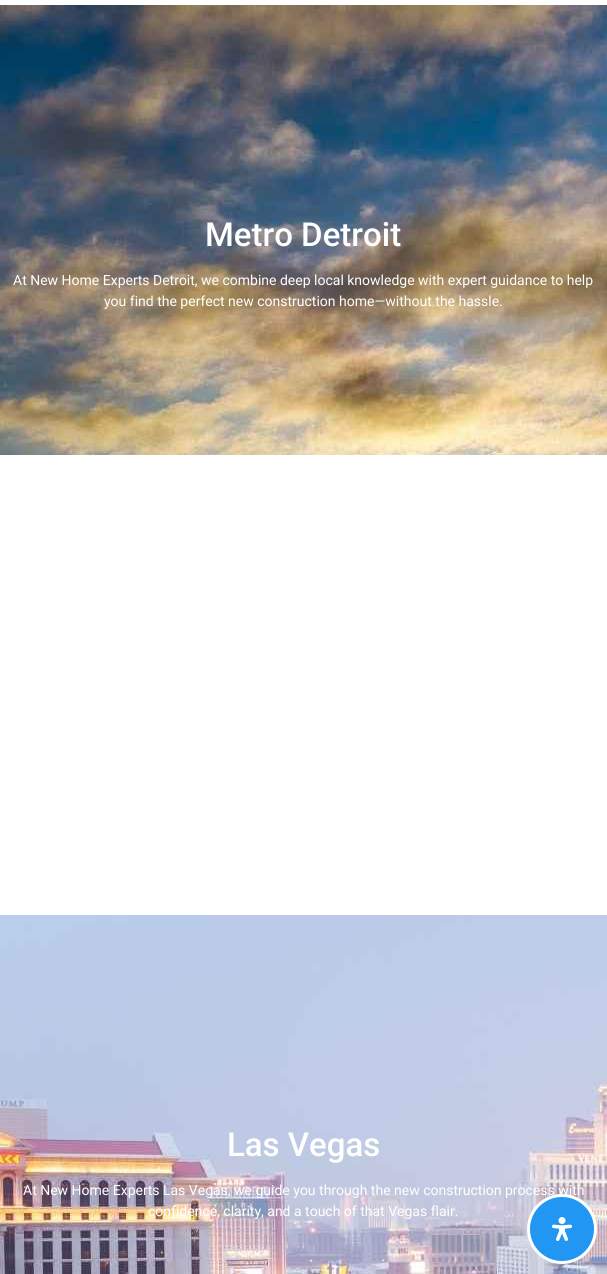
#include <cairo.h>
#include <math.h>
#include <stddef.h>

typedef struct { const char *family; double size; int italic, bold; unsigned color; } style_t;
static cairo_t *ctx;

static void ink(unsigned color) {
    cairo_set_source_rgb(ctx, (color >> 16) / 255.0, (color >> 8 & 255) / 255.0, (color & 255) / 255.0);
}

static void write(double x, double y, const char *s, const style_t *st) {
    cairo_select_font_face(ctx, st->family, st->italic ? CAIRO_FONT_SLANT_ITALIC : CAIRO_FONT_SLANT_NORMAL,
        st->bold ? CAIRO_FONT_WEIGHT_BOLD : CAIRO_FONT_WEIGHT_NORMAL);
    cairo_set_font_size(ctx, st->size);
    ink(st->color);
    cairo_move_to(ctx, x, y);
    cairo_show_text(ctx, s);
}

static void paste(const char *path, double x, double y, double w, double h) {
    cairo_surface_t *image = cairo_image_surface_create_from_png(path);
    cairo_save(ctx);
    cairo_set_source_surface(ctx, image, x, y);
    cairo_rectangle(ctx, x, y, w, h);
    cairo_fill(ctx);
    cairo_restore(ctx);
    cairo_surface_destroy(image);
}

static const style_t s1 = {"Roboto Medium", 33, 0, 0, 0xffffff};
static const style_t s2 = {"Roboto", 14, 0, 0, 0xffffff};

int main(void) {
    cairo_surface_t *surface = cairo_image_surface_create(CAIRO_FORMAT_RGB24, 607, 1274);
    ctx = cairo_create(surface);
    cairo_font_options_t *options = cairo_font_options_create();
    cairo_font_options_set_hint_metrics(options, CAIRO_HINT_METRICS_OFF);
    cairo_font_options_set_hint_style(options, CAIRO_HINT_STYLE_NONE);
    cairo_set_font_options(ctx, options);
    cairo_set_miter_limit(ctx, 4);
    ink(0xffffff);
    cairo_paint(ctx);
    paste("pic1.png", 0, 5, 607, 450);
    write(205, 246, "Metro Detroit", &s1);
    write(13, 285, "At New Home Experts Detroit, we combine deep local knowledge with expert guidance to help", &s2);
    write(104, 306, "you find the perfect new construction home—without the hassle.", &s2);
    paste("pic2.png", 0, 915, 607, 359);
    write(227, 1156, "Las Vegas", &s1);
    write(23, 1195, "At New Home Experts Las Vegas, we guide you through the new construction process with", &s2);
    write(148, 1216, "confidence, clarity, and a touch of that Vegas flair.", &s2);
    ink(0x2196f3);
    cairo_new_path(ctx);
    cairo_arc(ctx, 562, 1229, 33.5, 0, 2 * M_PI);
    cairo_fill_preserve(ctx);
    ink(0xffffff);
    cairo_set_line_width(ctx, 3);
    cairo_stroke(ctx);
    paste("pic3.png", 552, 1217, 20, 24);
    cairo_surface_write_to_png(surface, "screenshot.png");
    cairo_font_options_destroy(options);
    cairo_destroy(ctx);
    cairo_surface_destroy(surface);
    return 0;
}
